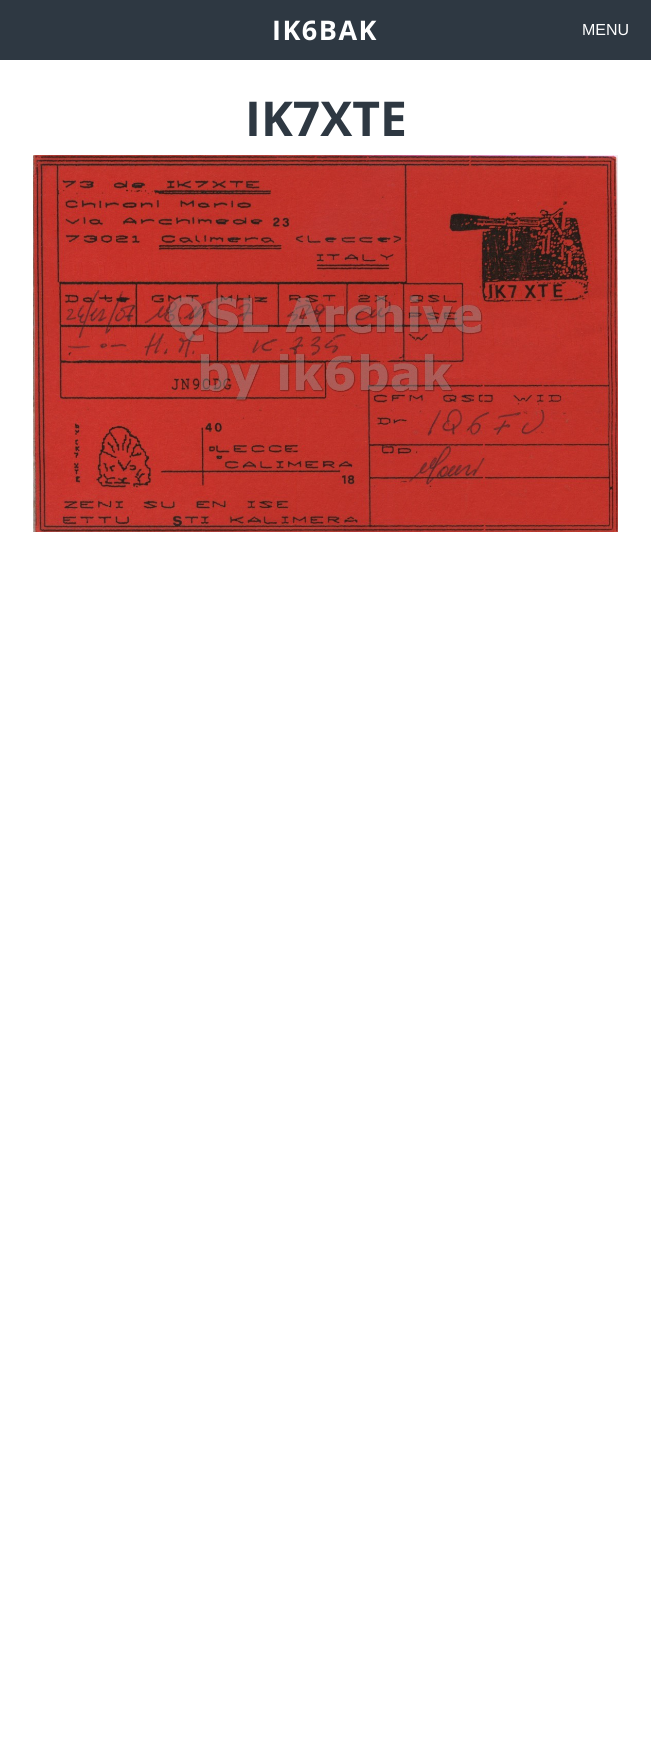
#include <cairo.h>
#include <math.h>
#include <stddef.h>

typedef struct { const char *family; double size; int italic, bold; unsigned color; } style_t;
static cairo_t *ctx;

static void ink(unsigned color) {
    cairo_set_source_rgb(ctx, (color >> 16) / 255.0, (color >> 8 & 255) / 255.0, (color & 255) / 255.0);
}

static void write(double x, double y, const char *s, const style_t *st) {
    cairo_select_font_face(ctx, st->family, st->italic ? CAIRO_FONT_SLANT_ITALIC : CAIRO_FONT_SLANT_NORMAL,
        st->bold ? CAIRO_FONT_WEIGHT_BOLD : CAIRO_FONT_WEIGHT_NORMAL);
    cairo_set_font_size(ctx, st->size);
    ink(st->color);
    cairo_move_to(ctx, x, y);
    cairo_show_text(ctx, s);
}

static void write_spaced(double x, double y, const char *s, double letter, double word) {
    cairo_move_to(ctx, x, y);
    while (*s) {
        char ch[5] = {0};
        int n = 0;
        do ch[n++] = *s++; while ((*s & 0xC0) == 0x80);
        cairo_show_text(ctx, ch);
        cairo_rel_move_to(ctx, letter + word * (*ch == ' '), 0);
    }
}

static void block(double x, double y, double w, double h, unsigned color) {
    ink(color);
    cairo_rectangle(ctx, x, y, w, h);
    cairo_fill(ctx);
}

static void paste(const char *path, double x, double y, double w, double h) {
    cairo_surface_t *image = cairo_image_surface_create_from_png(path);
    cairo_save(ctx);
    cairo_set_source_surface(ctx, image, x, y);
    cairo_rectangle(ctx, x, y, w, h);
    cairo_fill(ctx);
    cairo_restore(ctx);
    cairo_surface_destroy(image);
}

static const style_t s1 = {"Liberation Sans", 16, 0, 0, 0xffffff};
static const style_t s2 = {"Open Sans", 48, 0, 1, 0x2e3842};

int main(void) {
    cairo_surface_t *surface = cairo_image_surface_create(CAIRO_FORMAT_RGB24, 651, 1741);
    ctx = cairo_create(surface);
    cairo_font_options_t *options = cairo_font_options_create();
    cairo_font_options_set_hint_metrics(options, CAIRO_HINT_METRICS_OFF);
    cairo_font_options_set_hint_style(options, CAIRO_HINT_STYLE_NONE);
    cairo_set_font_options(ctx, options);
    cairo_set_miter_limit(ctx, 4);
    ink(0xffffff);
    cairo_paint(ctx);
    block(0, 0, 651, 60, 0x2e3842);
    cairo_select_font_face(ctx, "Open Sans", CAIRO_FONT_SLANT_NORMAL, CAIRO_FONT_WEIGHT_BOLD);
    cairo_set_font_size(ctx, 27);
    ink(0xffffff);
    write_spaced(272, 40, "IK6BAK", 1.5, 0);
    write(582, 35, "MENU", &s1);
    write(245, 136, "IK7XTE", &s2);
    paste("pic1.png", 33, 155, 585, 377);
    cairo_surface_write_to_png(surface, "screenshot.png");
    cairo_font_options_destroy(options);
    cairo_destroy(ctx);
    cairo_surface_destroy(surface);
    return 0;
}
